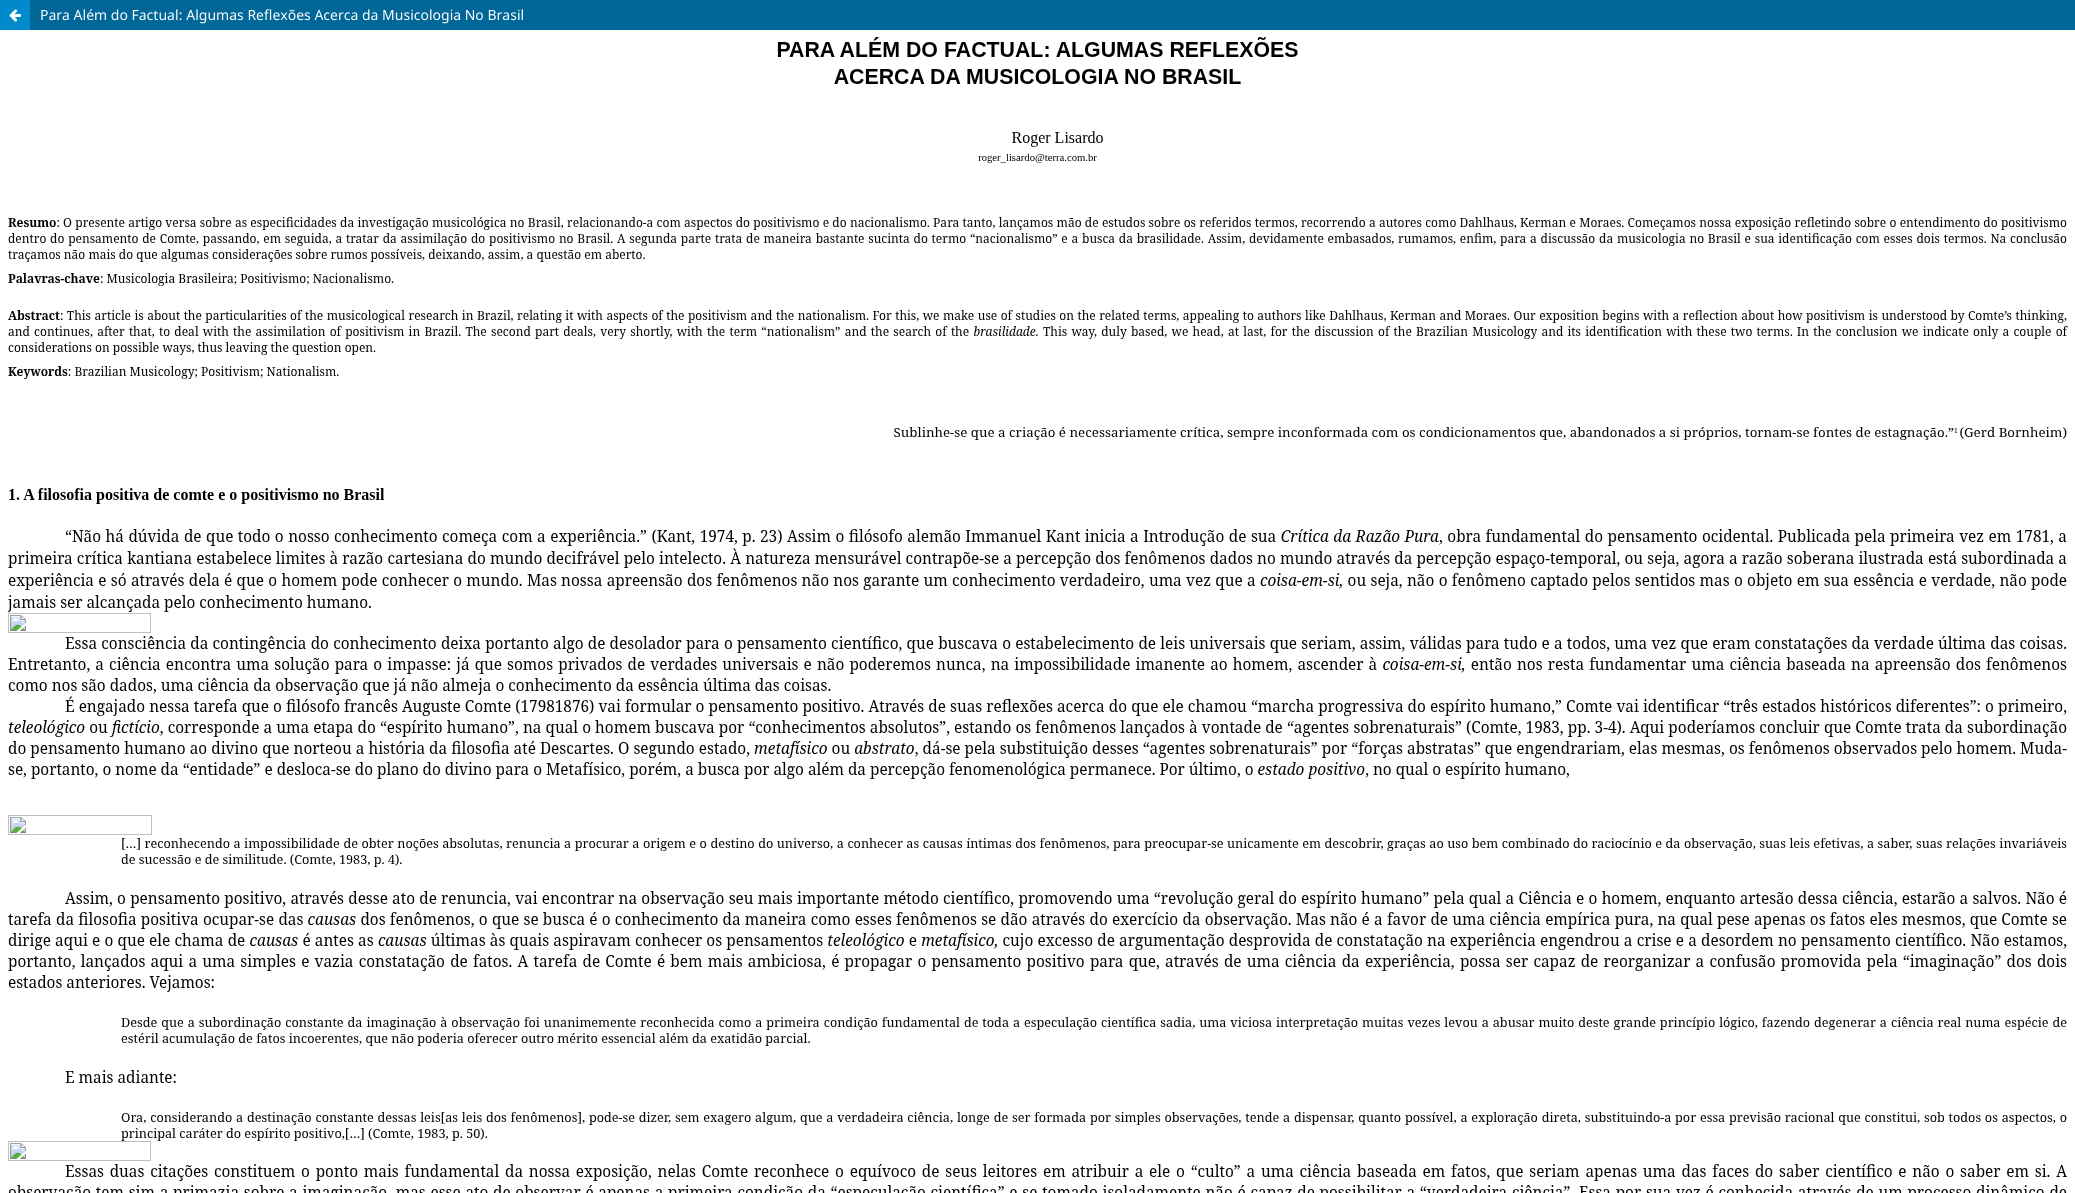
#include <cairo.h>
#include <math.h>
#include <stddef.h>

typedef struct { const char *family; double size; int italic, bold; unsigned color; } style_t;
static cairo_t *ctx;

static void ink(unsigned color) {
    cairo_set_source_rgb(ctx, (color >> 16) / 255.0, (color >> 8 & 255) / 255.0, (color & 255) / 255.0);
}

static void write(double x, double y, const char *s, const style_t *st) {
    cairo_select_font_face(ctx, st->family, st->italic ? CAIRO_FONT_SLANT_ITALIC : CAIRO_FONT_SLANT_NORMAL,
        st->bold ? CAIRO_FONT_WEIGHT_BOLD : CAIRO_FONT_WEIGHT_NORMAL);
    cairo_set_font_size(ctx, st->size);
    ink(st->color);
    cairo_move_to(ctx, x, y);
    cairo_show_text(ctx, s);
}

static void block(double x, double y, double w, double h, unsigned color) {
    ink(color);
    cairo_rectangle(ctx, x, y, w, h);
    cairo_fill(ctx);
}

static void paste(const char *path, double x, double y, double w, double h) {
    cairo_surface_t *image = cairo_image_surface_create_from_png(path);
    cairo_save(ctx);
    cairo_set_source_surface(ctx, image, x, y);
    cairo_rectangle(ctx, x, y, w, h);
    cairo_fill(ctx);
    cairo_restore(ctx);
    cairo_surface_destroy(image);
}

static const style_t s1 = {"Noto Sans", 14, 0, 0, 0xffffff};

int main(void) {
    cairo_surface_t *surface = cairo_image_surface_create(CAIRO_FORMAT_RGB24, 2075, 1193);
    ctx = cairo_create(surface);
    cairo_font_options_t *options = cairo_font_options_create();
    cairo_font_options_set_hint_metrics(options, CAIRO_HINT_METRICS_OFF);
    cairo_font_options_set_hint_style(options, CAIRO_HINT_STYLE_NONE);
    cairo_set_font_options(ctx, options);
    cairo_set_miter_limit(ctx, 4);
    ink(0xffffff);
    cairo_paint(ctx);
    block(30, 0, 2045, 30, 0x006798);
    block(0, 0, 30, 30, 0x008acb);
    paste("pic1.png", 9, 9, 12, 13);
    write(40, 20, "Para Além do Factual: Algumas Reflexões Acerca da Musicologia No Brasil", &s1);
    paste("pic2.png", 7, 37, 2061, 1156);
    cairo_surface_write_to_png(surface, "screenshot.png");
    cairo_font_options_destroy(options);
    cairo_destroy(ctx);
    cairo_surface_destroy(surface);
    return 0;
}
